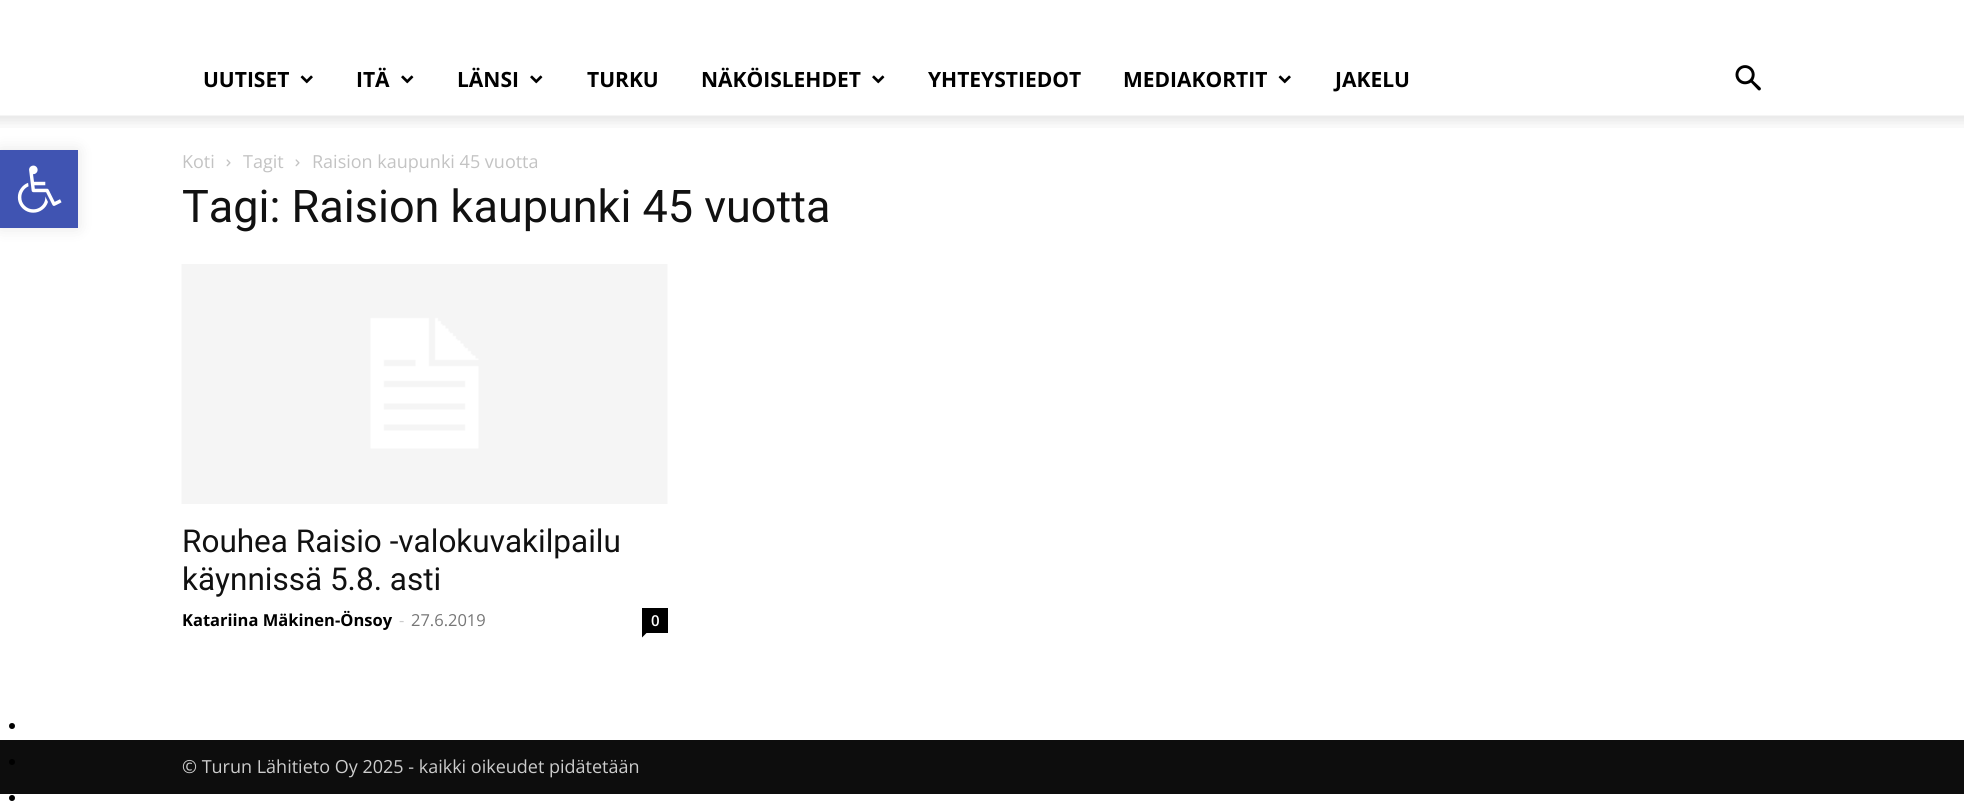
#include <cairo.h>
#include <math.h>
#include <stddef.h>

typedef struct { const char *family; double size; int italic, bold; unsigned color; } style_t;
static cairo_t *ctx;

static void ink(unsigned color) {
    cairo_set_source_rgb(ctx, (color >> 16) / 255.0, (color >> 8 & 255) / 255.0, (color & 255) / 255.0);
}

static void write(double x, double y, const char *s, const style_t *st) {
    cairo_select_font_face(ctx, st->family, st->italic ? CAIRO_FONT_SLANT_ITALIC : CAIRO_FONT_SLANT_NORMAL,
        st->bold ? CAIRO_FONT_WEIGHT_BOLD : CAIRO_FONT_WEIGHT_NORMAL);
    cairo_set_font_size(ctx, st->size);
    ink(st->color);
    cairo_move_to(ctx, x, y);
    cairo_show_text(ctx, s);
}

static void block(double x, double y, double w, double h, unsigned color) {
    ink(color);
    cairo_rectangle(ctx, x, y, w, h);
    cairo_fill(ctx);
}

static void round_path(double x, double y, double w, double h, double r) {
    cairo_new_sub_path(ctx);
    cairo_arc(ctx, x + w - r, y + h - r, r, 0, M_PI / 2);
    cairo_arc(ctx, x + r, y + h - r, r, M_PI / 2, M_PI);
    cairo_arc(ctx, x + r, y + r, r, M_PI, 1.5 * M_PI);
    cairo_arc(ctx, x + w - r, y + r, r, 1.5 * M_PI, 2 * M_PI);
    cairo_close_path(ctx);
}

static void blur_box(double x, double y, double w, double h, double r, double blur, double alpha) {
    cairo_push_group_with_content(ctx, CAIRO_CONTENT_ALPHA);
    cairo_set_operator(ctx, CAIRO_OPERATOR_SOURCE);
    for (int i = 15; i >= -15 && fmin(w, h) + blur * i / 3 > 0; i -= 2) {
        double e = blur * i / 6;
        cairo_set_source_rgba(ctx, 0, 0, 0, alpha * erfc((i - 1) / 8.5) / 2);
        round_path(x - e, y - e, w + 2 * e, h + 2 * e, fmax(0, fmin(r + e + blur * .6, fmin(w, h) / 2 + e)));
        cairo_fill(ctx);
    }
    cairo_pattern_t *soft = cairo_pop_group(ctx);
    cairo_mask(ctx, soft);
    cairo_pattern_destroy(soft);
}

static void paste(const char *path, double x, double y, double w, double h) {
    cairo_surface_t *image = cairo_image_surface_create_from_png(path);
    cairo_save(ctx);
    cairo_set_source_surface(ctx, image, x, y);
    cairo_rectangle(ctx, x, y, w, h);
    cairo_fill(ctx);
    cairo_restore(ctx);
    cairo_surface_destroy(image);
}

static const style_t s1 = {"Open Sans", 21, 0, 1, 0x000000};
static const style_t s2 = {"Open Sans", 18, 0, 0, 0xc3c3c3};
static const style_t s3 = {"Roboto", 45, 0, 0, 0x111111};
static const style_t s4 = {"Roboto", 31.5, 0, 0, 0x111111};
static const style_t s5 = {"Open Sans", 16.5, 0, 1, 0x000000};
static const style_t s6 = {"Open Sans", 16.5, 0, 0, 0xcccccc};
static const style_t s7 = {"Open Sans", 16.5, 0, 0, 0x767676};
static const style_t s8 = {"Open Sans SemiBold", 15, 0, 0, 0xffffff};
static const style_t s9 = {"Open Sans", 18, 0, 0, 0xcccccc};

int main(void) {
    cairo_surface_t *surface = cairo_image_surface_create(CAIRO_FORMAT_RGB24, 1964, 811);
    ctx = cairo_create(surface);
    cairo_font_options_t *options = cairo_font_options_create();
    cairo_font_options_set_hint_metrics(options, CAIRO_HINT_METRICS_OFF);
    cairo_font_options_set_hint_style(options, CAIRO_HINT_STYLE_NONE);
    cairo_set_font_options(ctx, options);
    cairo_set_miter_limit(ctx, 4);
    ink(0xffffff);
    cairo_paint(ctx);
    paste("pic5.png", 0, 115, 1964, 13);
    ink(0x000000);
    blur_box(0, 150, 78, 78, 0, 7.5, 0.1);
    block(0, 150, 78, 78, 0x4054b2);
    paste("pic1.png", 17, 165, 45, 48);
    write(203, 87, "UUTISET", &s1);
    paste("pic2.png", 300, 75, 13, 9);
    write(356, 87, "ITÄ", &s1);
    paste("pic3.png", 401, 75, 13, 9);
    write(457, 87, "LÄNSI", &s1);
    paste("pic3.png", 530, 75, 13, 9);
    write(587, 87, "TURKU", &s1);
    write(701, 87, "NÄKÖISLEHDET", &s1);
    paste("pic3.png", 872, 75, 13, 9);
    write(928, 87, "YHTEYSTIEDOT", &s1);
    write(1123, 87, "MEDIAKORTIT", &s1);
    paste("pic2.png", 1278, 75, 13, 9);
    write(1335, 87, "JAKELU", &s1);
    paste("pic4.png", 1735, 65, 26, 26);
    write(182, 168, "Koti", &s2);
    paste("pic6.png", 226, 159, 5, 8);
    write(243, 168, "Tagit", &s2);
    paste("pic6.png", 295, 159, 5, 8);
    write(312, 168, "Raision kaupunki 45 vuotta", &s2);
    write(182, 222, "Tagi: Raision kaupunki 45 vuotta", &s3);
    paste("pic7.png", 181, 264, 487, 240);
    write(182, 552, "Rouhea Raisio -valokuvakilpailu", &s4);
    write(182, 590, "käynnissä 5.8. asti", &s4);
    write(182, 626, "Katariina Mäkinen-Önsoy", &s5);
    write(399, 626, "-", &s6);
    write(411, 626, "27.6.2019", &s7);
    block(642, 608, 26, 25, 0x000000);
    write(651, 626, "0", &s8);
    ink(0x000000);
    cairo_new_path(ctx);
    cairo_move_to(ctx, 642, 633);
    cairo_line_to(ctx, 646.5, 633);
    cairo_line_to(ctx, 642, 637.5);
    cairo_close_path(ctx);
    cairo_fill(ctx);
    block(0, 740, 1964, 54, 0x0d0d0d);
    write(182, 773, "© Turun Lähitieto Oy 2025 - kaikki oikeudet pidätetään", &s9);
    ink(0x000000);
    cairo_new_path(ctx);
    cairo_arc(ctx, 12, 726, 3, 0, 2 * M_PI);
    cairo_fill(ctx);
    cairo_arc(ctx, 12, 762, 3, 0, 2 * M_PI);
    cairo_fill(ctx);
    cairo_arc(ctx, 12, 798, 3, 0, 2 * M_PI);
    cairo_fill(ctx);
    cairo_surface_write_to_png(surface, "screenshot.png");
    cairo_font_options_destroy(options);
    cairo_destroy(ctx);
    cairo_surface_destroy(surface);
    return 0;
}
